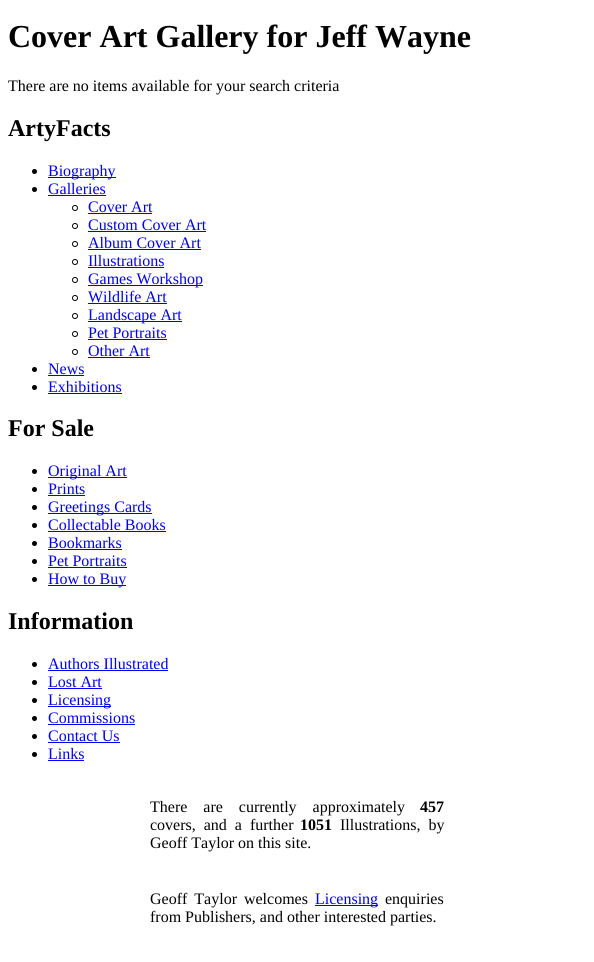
#include <cairo.h>
#include <math.h>
#include <stddef.h>

typedef struct { const char *family; double size; int italic, bold; unsigned color; } style_t;
static cairo_t *ctx;

static void ink(unsigned color) {
    cairo_set_source_rgb(ctx, (color >> 16) / 255.0, (color >> 8 & 255) / 255.0, (color & 255) / 255.0);
}

static void write(double x, double y, const char *s, const style_t *st) {
    cairo_select_font_face(ctx, st->family, st->italic ? CAIRO_FONT_SLANT_ITALIC : CAIRO_FONT_SLANT_NORMAL,
        st->bold ? CAIRO_FONT_WEIGHT_BOLD : CAIRO_FONT_WEIGHT_NORMAL);
    cairo_set_font_size(ctx, st->size);
    ink(st->color);
    cairo_move_to(ctx, x, y);
    cairo_show_text(ctx, s);
}

static void write_spaced(double x, double y, const char *s, double letter, double word) {
    cairo_move_to(ctx, x, y);
    while (*s) {
        char ch[5] = {0};
        int n = 0;
        do ch[n++] = *s++; while ((*s & 0xC0) == 0x80);
        cairo_show_text(ctx, ch);
        cairo_rel_move_to(ctx, letter + word * (*ch == ' '), 0);
    }
}

static void block(double x, double y, double w, double h, unsigned color) {
    ink(color);
    cairo_rectangle(ctx, x, y, w, h);
    cairo_fill(ctx);
}

static const style_t s1 = {"Liberation Serif", 32, 0, 1, 0x000000};
static const style_t s2 = {"Liberation Serif", 16, 0, 0, 0x000000};
static const style_t s3 = {"Liberation Serif", 24, 0, 1, 0x000000};
static const style_t s4 = {"Liberation Serif", 16, 0, 0, 0x0000ee};
static const style_t s5 = {"Liberation Serif", 16, 0, 1, 0x000000};

int main(void) {
    cairo_surface_t *surface = cairo_image_surface_create(CAIRO_FORMAT_RGB24, 594, 962);
    ctx = cairo_create(surface);
    cairo_font_options_t *options = cairo_font_options_create();
    cairo_font_options_set_hint_metrics(options, CAIRO_HINT_METRICS_OFF);
    cairo_font_options_set_hint_style(options, CAIRO_HINT_STYLE_NONE);
    cairo_set_font_options(ctx, options);
    cairo_set_miter_limit(ctx, 4);
    ink(0xffffff);
    cairo_paint(ctx);
    write(8, 47, "Cover Art Gallery for Jeff Wayne", &s1);
    write(8, 91, "There are no items available for your search criteria", &s2);
    write(8, 136, "ArtyFacts", &s3);
    cairo_new_path(ctx);
    cairo_arc(ctx, 34.5, 171.5, 2.5, 0, 2 * M_PI);
    cairo_fill(ctx);
    block(48, 177, 68, 1, 0x0000ee);
    write(48, 176, "Biography", &s4);
    ink(0x000000);
    cairo_new_path(ctx);
    cairo_arc(ctx, 34.5, 189.5, 2.5, 0, 2 * M_PI);
    cairo_fill(ctx);
    write(48, 194, "Galleries", &s4);
    block(48, 195, 58, 1, 0x0000ee);
    cairo_new_path(ctx);
    cairo_arc(ctx, 75, 208, 2.5, 0, 2 * M_PI);
    ink(0x000000);
    cairo_set_line_width(ctx, 1);
    cairo_stroke(ctx);
    write(88, 212, "Cover Art", &s4);
    block(88, 213, 64, 1, 0x0000ee);
    cairo_new_path(ctx);
    cairo_arc(ctx, 75, 226, 2.5, 0, 2 * M_PI);
    ink(0x000000);
    cairo_stroke(ctx);
    write(88, 230, "Custom Cover Art", &s4);
    block(88, 231, 118, 1, 0x0000ee);
    cairo_new_path(ctx);
    cairo_arc(ctx, 75, 244, 2.5, 0, 2 * M_PI);
    ink(0x000000);
    cairo_stroke(ctx);
    write(88, 248, "Album Cover Art", &s4);
    block(88, 249, 113, 1, 0x0000ee);
    cairo_new_path(ctx);
    cairo_arc(ctx, 75, 262, 2.5, 0, 2 * M_PI);
    ink(0x000000);
    cairo_stroke(ctx);
    write(88, 266, "Illustrations", &s4);
    block(88, 267, 76, 1, 0x0000ee);
    cairo_new_path(ctx);
    cairo_arc(ctx, 75, 280, 2.5, 0, 2 * M_PI);
    ink(0x000000);
    cairo_stroke(ctx);
    block(88, 285, 115, 1, 0x0000ee);
    write(88, 284, "Games Workshop", &s4);
    cairo_new_path(ctx);
    cairo_arc(ctx, 75, 298, 2.5, 0, 2 * M_PI);
    ink(0x000000);
    cairo_stroke(ctx);
    write(88, 302, "Wildlife Art", &s4);
    block(88, 303, 79, 1, 0x0000ee);
    cairo_new_path(ctx);
    cairo_arc(ctx, 75, 316, 2.5, 0, 2 * M_PI);
    ink(0x000000);
    cairo_stroke(ctx);
    block(88, 321, 94, 1, 0x0000ee);
    write(88, 320, "Landscape Art", &s4);
    cairo_new_path(ctx);
    cairo_arc(ctx, 75, 334, 2.5, 0, 2 * M_PI);
    ink(0x000000);
    cairo_stroke(ctx);
    write(88, 338, "Pet Portraits", &s4);
    block(88, 339, 79, 1, 0x0000ee);
    cairo_new_path(ctx);
    cairo_arc(ctx, 75, 352, 2.5, 0, 2 * M_PI);
    ink(0x000000);
    cairo_stroke(ctx);
    write(88, 356, "Other Art", &s4);
    block(88, 357, 62, 1, 0x0000ee);
    ink(0x000000);
    cairo_new_path(ctx);
    cairo_arc(ctx, 34.5, 369.5, 2.5, 0, 2 * M_PI);
    cairo_fill(ctx);
    write(48, 374, "News", &s4);
    block(48, 375, 36, 1, 0x0000ee);
    ink(0x000000);
    cairo_new_path(ctx);
    cairo_arc(ctx, 34.5, 387.5, 2.5, 0, 2 * M_PI);
    cairo_fill(ctx);
    write(48, 392, "Exhibitions", &s4);
    block(48, 393, 74, 1, 0x0000ee);
    write(8, 436, "For Sale", &s3);
    cairo_new_path(ctx);
    cairo_arc(ctx, 34.5, 471.5, 2.5, 0, 2 * M_PI);
    cairo_fill(ctx);
    block(48, 477, 79, 1, 0x0000ee);
    write(48, 476, "Original Art", &s4);
    ink(0x000000);
    cairo_new_path(ctx);
    cairo_arc(ctx, 34.5, 489.5, 2.5, 0, 2 * M_PI);
    cairo_fill(ctx);
    write(48, 494, "Prints", &s4);
    block(48, 495, 37, 1, 0x0000ee);
    ink(0x000000);
    cairo_new_path(ctx);
    cairo_arc(ctx, 34.5, 507.5, 2.5, 0, 2 * M_PI);
    cairo_fill(ctx);
    block(48, 513, 104, 1, 0x0000ee);
    write(48, 512, "Greetings Cards", &s4);
    ink(0x000000);
    cairo_new_path(ctx);
    cairo_arc(ctx, 34.5, 525.5, 2.5, 0, 2 * M_PI);
    cairo_fill(ctx);
    write(48, 530, "Collectable Books", &s4);
    block(48, 531, 118, 1, 0x0000ee);
    ink(0x000000);
    cairo_new_path(ctx);
    cairo_arc(ctx, 34.5, 543.5, 2.5, 0, 2 * M_PI);
    cairo_fill(ctx);
    write(48, 548, "Bookmarks", &s4);
    block(48, 549, 74, 1, 0x0000ee);
    ink(0x000000);
    cairo_new_path(ctx);
    cairo_arc(ctx, 34.5, 561.5, 2.5, 0, 2 * M_PI);
    cairo_fill(ctx);
    write(48, 566, "Pet Portraits", &s4);
    block(48, 567, 79, 1, 0x0000ee);
    ink(0x000000);
    cairo_new_path(ctx);
    cairo_arc(ctx, 34.5, 579.5, 2.5, 0, 2 * M_PI);
    cairo_fill(ctx);
    block(48, 585, 78, 1, 0x0000ee);
    write(48, 584, "How to Buy", &s4);
    write(8, 629, "Information", &s3);
    cairo_new_path(ctx);
    cairo_arc(ctx, 34.5, 664.5, 2.5, 0, 2 * M_PI);
    cairo_fill(ctx);
    write(48, 669, "Authors Illustrated", &s4);
    block(48, 670, 120, 1, 0x0000ee);
    ink(0x000000);
    cairo_new_path(ctx);
    cairo_arc(ctx, 34.5, 682.5, 2.5, 0, 2 * M_PI);
    cairo_fill(ctx);
    write(48, 687, "Lost Art", &s4);
    block(48, 688, 54, 1, 0x0000ee);
    ink(0x000000);
    cairo_new_path(ctx);
    cairo_arc(ctx, 34.5, 700.5, 2.5, 0, 2 * M_PI);
    cairo_fill(ctx);
    block(48, 706, 63, 1, 0x0000ee);
    write(48, 705, "Licensing", &s4);
    ink(0x000000);
    cairo_new_path(ctx);
    cairo_arc(ctx, 34.5, 718.5, 2.5, 0, 2 * M_PI);
    cairo_fill(ctx);
    write(48, 723, "Commissions", &s4);
    block(48, 724, 87, 1, 0x0000ee);
    ink(0x000000);
    cairo_new_path(ctx);
    cairo_arc(ctx, 34.5, 736.5, 2.5, 0, 2 * M_PI);
    cairo_fill(ctx);
    write(48, 741, "Contact Us", &s4);
    block(48, 742, 72, 1, 0x0000ee);
    ink(0x000000);
    cairo_new_path(ctx);
    cairo_arc(ctx, 34.5, 754.5, 2.5, 0, 2 * M_PI);
    cairo_fill(ctx);
    write(48, 759, "Links", &s4);
    block(48, 760, 36, 1, 0x0000ee);
    ink(0x000000);
    write_spaced(150, 812, "There are currently approximately", 0, 12);
    write(420, 812, "457", &s5);
    cairo_select_font_face(ctx, "Liberation Serif", CAIRO_FONT_SLANT_NORMAL, CAIRO_FONT_WEIGHT_NORMAL);
    write_spaced(150, 830, "covers, and a further", 0, 4);
    write(300, 830, "1051", &s5);
    cairo_select_font_face(ctx, "Liberation Serif", CAIRO_FONT_SLANT_NORMAL, CAIRO_FONT_WEIGHT_NORMAL);
    write_spaced(340, 830, "Illustrations, by", 0, 4);
    write(150, 848, "Geoff Taylor on this site.", &s2);
    write_spaced(150, 904, "Geoff Taylor welcomes", 0, 3);
    block(315, 905, 63, 1, 0x0000ee);
    write(315, 904, "Licensing", &s4);
    write(385, 904, "enquiries", &s2);
    write(150, 922, "from Publishers, and other interested parties.", &s2);
    cairo_surface_write_to_png(surface, "screenshot.png");
    cairo_font_options_destroy(options);
    cairo_destroy(ctx);
    cairo_surface_destroy(surface);
    return 0;
}
